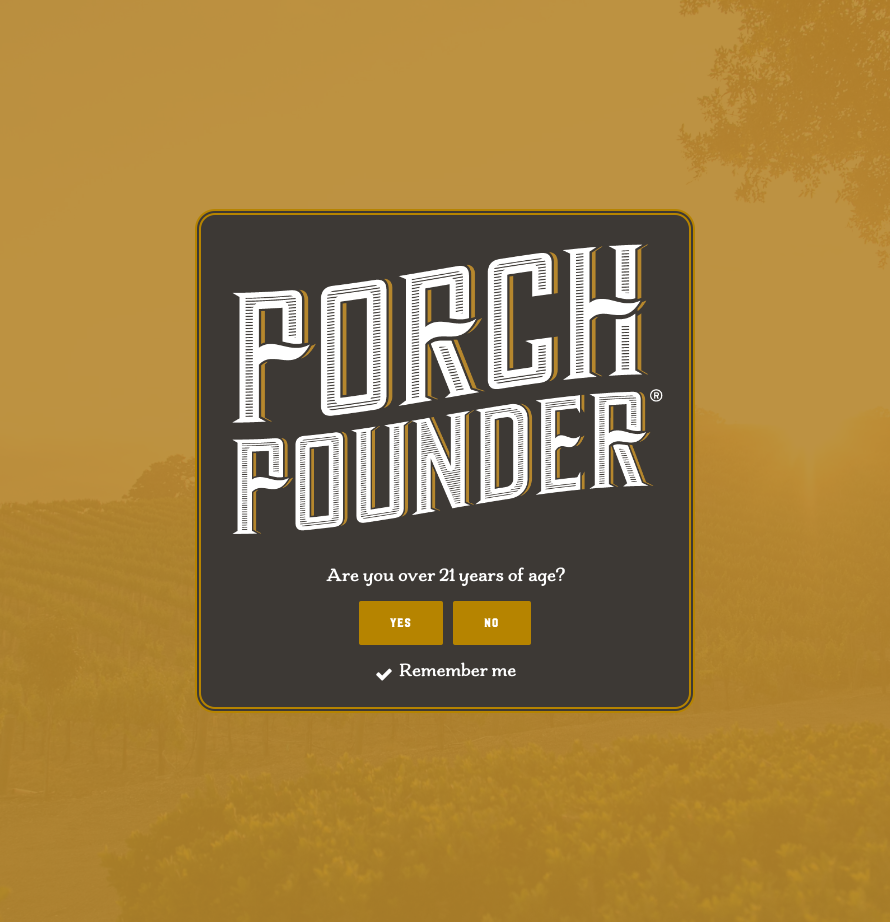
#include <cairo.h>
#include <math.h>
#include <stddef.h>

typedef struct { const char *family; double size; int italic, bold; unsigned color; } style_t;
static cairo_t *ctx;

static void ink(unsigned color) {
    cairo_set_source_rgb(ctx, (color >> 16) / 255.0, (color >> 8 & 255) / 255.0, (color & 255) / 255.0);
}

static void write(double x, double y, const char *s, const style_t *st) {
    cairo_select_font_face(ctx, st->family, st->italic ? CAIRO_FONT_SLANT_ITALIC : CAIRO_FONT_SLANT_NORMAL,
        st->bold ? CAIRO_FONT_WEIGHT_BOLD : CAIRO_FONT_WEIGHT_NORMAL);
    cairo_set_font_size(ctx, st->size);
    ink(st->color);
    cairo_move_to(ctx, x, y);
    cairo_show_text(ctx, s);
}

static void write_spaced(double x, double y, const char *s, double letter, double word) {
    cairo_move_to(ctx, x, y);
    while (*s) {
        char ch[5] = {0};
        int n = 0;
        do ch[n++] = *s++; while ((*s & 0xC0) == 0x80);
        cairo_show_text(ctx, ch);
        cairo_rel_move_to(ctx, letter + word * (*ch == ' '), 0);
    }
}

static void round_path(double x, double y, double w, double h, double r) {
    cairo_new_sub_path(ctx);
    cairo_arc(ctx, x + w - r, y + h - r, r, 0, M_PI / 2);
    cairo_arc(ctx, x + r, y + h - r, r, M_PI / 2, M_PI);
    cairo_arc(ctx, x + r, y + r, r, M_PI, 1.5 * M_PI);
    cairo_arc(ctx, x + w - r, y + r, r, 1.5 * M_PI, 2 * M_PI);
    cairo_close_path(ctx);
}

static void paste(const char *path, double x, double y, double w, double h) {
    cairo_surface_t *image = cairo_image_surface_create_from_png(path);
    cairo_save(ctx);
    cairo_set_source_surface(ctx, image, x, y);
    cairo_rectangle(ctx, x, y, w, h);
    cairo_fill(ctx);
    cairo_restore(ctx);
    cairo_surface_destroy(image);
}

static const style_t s1 = {"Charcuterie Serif", 18, 0, 1, 0xffffff};

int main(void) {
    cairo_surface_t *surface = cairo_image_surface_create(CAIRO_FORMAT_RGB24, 890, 922);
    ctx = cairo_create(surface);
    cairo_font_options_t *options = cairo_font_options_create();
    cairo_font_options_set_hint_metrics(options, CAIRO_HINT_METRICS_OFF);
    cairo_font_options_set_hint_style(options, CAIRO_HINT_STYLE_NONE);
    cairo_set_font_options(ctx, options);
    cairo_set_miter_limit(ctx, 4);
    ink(0xb5862d);
    cairo_paint(ctx);
    paste("pic1.png", 0, 0, 890, 922);
    ink(0x3d3935);
    round_path(196, 210, 498, 502, 19);
    cairo_fill_preserve(ctx);
    ink(0xb68400);
    cairo_stroke(ctx);
    round_path(200, 214, 490, 494, 15);
    cairo_stroke(ctx);
    paste("pic2.png", 232, 244, 431, 290);
    write(326, 581, "Are you over 21 years of age?", &s1);
    ink(0xb68400);
    round_path(359, 601, 84, 44, 2);
    cairo_fill(ctx);
    cairo_select_font_face(ctx, "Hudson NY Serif", CAIRO_FONT_SLANT_NORMAL, CAIRO_FONT_WEIGHT_BOLD);
    cairo_set_font_size(ctx, 12);
    ink(0xffffff);
    write_spaced(390, 627, "YES", 1, 0);
    ink(0xb68400);
    round_path(453, 601, 78, 44, 2);
    cairo_fill(ctx);
    ink(0xffffff);
    write_spaced(484, 627, "NO", 1, 0);
    paste("pic3.png", 376, 668, 16, 13);
    write(399, 676, "Remember me", &s1);
    cairo_surface_write_to_png(surface, "screenshot.png");
    cairo_font_options_destroy(options);
    cairo_destroy(ctx);
    cairo_surface_destroy(surface);
    return 0;
}
